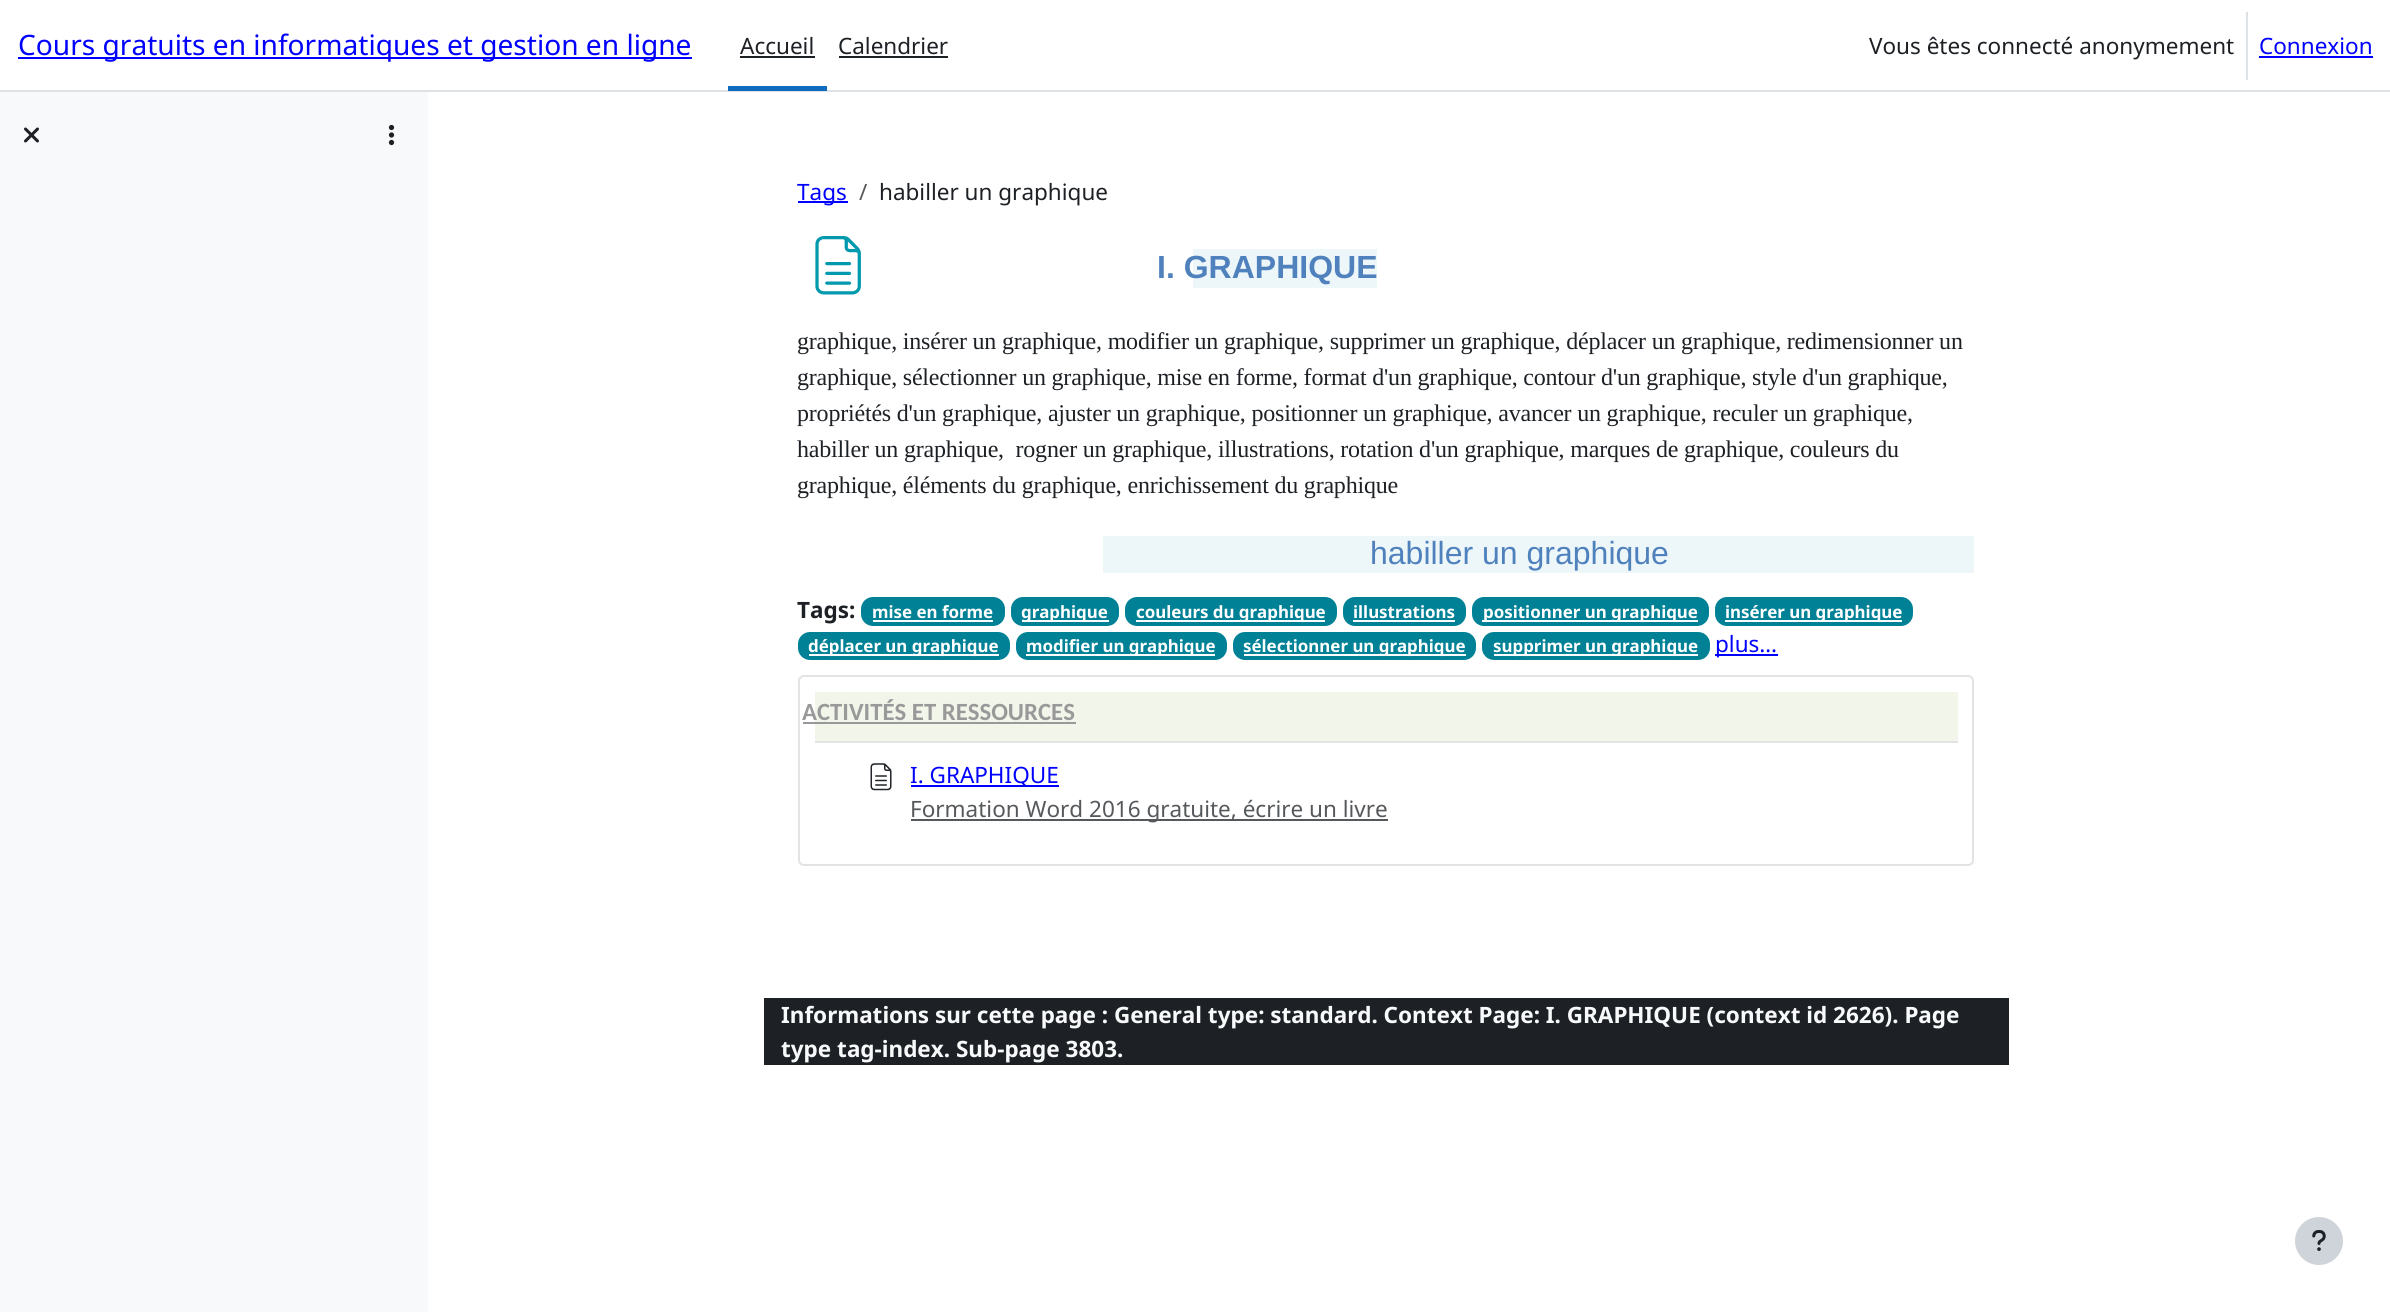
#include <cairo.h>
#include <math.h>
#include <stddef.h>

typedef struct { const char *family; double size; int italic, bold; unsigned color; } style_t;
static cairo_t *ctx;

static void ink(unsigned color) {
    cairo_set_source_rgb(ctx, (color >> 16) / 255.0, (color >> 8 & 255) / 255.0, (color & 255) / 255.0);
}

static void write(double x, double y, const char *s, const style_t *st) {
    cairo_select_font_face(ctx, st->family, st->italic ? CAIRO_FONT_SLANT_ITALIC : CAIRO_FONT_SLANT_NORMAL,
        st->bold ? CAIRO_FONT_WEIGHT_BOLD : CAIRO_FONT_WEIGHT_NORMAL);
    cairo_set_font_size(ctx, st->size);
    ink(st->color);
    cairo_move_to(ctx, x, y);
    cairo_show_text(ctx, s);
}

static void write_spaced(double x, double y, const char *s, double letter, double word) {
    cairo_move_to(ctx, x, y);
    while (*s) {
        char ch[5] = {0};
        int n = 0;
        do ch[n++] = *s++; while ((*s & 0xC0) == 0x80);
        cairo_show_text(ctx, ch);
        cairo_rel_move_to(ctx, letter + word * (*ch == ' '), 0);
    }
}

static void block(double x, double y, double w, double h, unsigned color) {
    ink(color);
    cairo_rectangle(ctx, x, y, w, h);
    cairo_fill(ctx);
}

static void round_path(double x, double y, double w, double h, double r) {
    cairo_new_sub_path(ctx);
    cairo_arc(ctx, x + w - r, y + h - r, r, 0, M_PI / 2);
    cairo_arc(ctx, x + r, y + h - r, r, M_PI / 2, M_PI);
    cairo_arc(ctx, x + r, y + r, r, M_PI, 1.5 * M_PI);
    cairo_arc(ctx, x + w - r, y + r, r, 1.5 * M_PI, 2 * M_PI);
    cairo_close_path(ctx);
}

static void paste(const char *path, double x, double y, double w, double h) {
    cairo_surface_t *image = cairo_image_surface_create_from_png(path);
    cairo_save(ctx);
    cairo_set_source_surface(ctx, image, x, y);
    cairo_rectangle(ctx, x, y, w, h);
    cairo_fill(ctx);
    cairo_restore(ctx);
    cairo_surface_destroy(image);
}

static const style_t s1 = {"Noto Sans", 28.1, 0, 0, 0x0000ff};
static const style_t s2 = {"Noto Sans", 22.5, 0, 0, 0x1d2125};
static const style_t s3 = {"Noto Sans", 22.5, 0, 0, 0x0000ff};
static const style_t s4 = {"Noto Sans", 22.5, 0, 0, 0x56595c};
static const style_t s5 = {"Liberation Sans", 32, 0, 1, 0x4f81bd};
static const style_t s6 = {"Liberation Sans", 32, 0, 0, 0x4f81bd};
static const style_t s7 = {"Noto Sans", 22.5, 0, 1, 0x1d2125};
static const style_t s8 = {"Noto Sans", 16.9, 0, 1, 0xffffff};
static const style_t s9 = {"Carlito", 24.75, 0, 1, 0x999999};
static const style_t s10 = {"Noto Sans", 22.5, 0, 1, 0xf8f9fa};

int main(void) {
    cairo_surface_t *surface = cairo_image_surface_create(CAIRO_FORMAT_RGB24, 2390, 1312);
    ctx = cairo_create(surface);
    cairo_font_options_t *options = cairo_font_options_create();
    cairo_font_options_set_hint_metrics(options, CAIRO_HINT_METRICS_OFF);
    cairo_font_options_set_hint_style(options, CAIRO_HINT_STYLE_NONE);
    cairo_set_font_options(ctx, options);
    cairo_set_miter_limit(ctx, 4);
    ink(0xffffff);
    cairo_paint(ctx);
    block(0, 90, 2390, 2, 0xdee2e6);
    block(18, 57, 674, 2, 0x0000ff);
    write(18, 55, "Cours gratuits en informatiques et gestion en ligne", &s1);
    block(728, 86, 99, 5, 0x0f6cbf);
    write(740, 54, "Accueil", &s2);
    block(740, 56, 75, 2, 0x1d2125);
    write(838, 54, "Calendrier", &s2);
    block(839, 56, 109, 2, 0x1d2125);
    write(1869, 54, "Vous êtes connecté anonymement", &s2);
    block(2246, 12, 2, 68, 0xdee2e6);
    write(2259, 54, "Connexion", &s3);
    block(2259, 56, 114, 2, 0x0000ff);
    block(0, 92, 428, 1220, 0xf8f9fa);
    paste("pic1.png", 24, 127, 15, 16);
    paste("pic2.png", 388, 124, 7, 22);
    block(798, 201, 50, 2, 0x0000ff);
    write(797, 200, "Tags", &s3);
    write(859, 200, "/", &s4);
    write(879, 200, "habiller un graphique", &s2);
    paste("pic3.png", 815, 236, 46, 59);
    block(1193, 249, 184, 39, 0xedf6f9);
    write(1157, 278, "I. GRAPHIQUE", &s5);
    cairo_select_font_face(ctx, "Liberation Serif", CAIRO_FONT_SLANT_NORMAL, CAIRO_FONT_WEIGHT_NORMAL);
    cairo_set_font_size(ctx, 24);
    ink(0x1d2125);
    write_spaced(797, 349, "graphique, insérer un graphique, modifier un graphique, supprimer un graphique, déplacer un graphique, redimensionner un", -0.2, 0);
    write_spaced(797, 385, "graphique, sélectionner un graphique, mise en forme, format d'un graphique, contour d'un graphique, style d'un graphique,", -0.2, 0);
    write_spaced(797, 421, "propriétés d'un graphique, ajuster un graphique, positionner un graphique, avancer un graphique, reculer un graphique,", -0.2, 0);
    write_spaced(797, 457, "habiller un graphique,  rogner un graphique, illustrations, rotation d'un graphique, marques de graphique, couleurs du", -0.2, 0);
    write_spaced(797, 493, "graphique, éléments du graphique, enrichissement du graphique", -0.2, 0);
    block(1103, 536, 871, 37, 0xedf6f9);
    write(1370, 564, "habiller un graphique", &s6);
    write(797, 618, "Tags:", &s7);
    ink(0x008196);
    round_path(861, 597, 144, 29, 12);
    cairo_fill(ctx);
    write(872, 618, "mise en forme", &s8);
    block(873, 620, 120, 2, 0xffffff);
    ink(0x008196);
    round_path(1011, 597, 108, 29, 12);
    cairo_fill(ctx);
    block(1022, 620, 87, 2, 0xffffff);
    write(1021, 618, "graphique", &s8);
    ink(0x008196);
    round_path(1125, 597, 212, 29, 12);
    cairo_fill(ctx);
    block(1136, 620, 189, 2, 0xffffff);
    write(1136, 618, "couleurs du graphique", &s8);
    ink(0x008196);
    round_path(1343, 597, 123, 29, 12);
    cairo_fill(ctx);
    write(1353, 618, "illustrations", &s8);
    block(1353, 620, 102, 2, 0xffffff);
    ink(0x008196);
    round_path(1472, 597, 237, 29, 12);
    cairo_fill(ctx);
    block(1482, 620, 216, 2, 0xffffff);
    write(1483, 618, "positionner un graphique", &s8);
    ink(0x008196);
    round_path(1715, 597, 198, 29, 12);
    cairo_fill(ctx);
    block(1725, 620, 177, 2, 0xffffff);
    write(1725, 618, "insérer un graphique", &s8);
    ink(0x008196);
    round_path(798, 632, 212, 28, 12);
    cairo_fill(ctx);
    block(809, 654, 190, 2, 0xffffff);
    write(808, 652, "déplacer un graphique", &s8);
    ink(0x008196);
    round_path(1016, 632, 211, 28, 12);
    cairo_fill(ctx);
    block(1026, 654, 189, 2, 0xffffff);
    write(1026, 652, "modifier un graphique", &s8);
    ink(0x008196);
    round_path(1233, 632, 243, 28, 12);
    cairo_fill(ctx);
    block(1244, 654, 222, 2, 0xffffff);
    write(1243, 652, "sélectionner un graphique", &s8);
    ink(0x008196);
    round_path(1482, 632, 228, 28, 12);
    cairo_fill(ctx);
    block(1494, 654, 204, 2, 0xffffff);
    write(1493, 652, "supprimer un graphique", &s8);
    block(1715, 654, 63, 2, 0x0000ff);
    write(1715, 652, "plus…", &s3);
    round_path(799, 676, 1174, 189, 5);
    ink(0xe3e3e3);
    cairo_stroke(ctx);
    block(815, 692, 1143, 49, 0xf2f6ea);
    block(815, 741, 1143, 2, 0xe3e3e3);
    write(802, 720, "ACTIVITÉS ET RESSOURCES", &s9);
    block(803, 722, 273, 2, 0x999999);
    paste("pic4.png", 870, 763, 22, 28);
    block(911, 785, 148, 2, 0x0000ff);
    write(910, 783, "I. GRAPHIQUE", &s3);
    block(911, 819, 477, 2, 0x56595c);
    write(910, 817, "Formation Word 2016 gratuite, écrire un livre", &s4);
    block(764, 998, 1245, 67, 0x1d2125);
    write(781, 1023, "Informations sur cette page : General type: standard. Context Page: I. GRAPHIQUE (context id 2626). Page", &s10);
    write(781, 1057, "type tag-index. Sub-page 3803.", &s10);
    ink(0xced4da);
    cairo_new_path(ctx);
    cairo_arc(ctx, 2319, 1241, 24, 0, 2 * M_PI);
    cairo_fill(ctx);
    paste("pic5.png", 2312, 1230, 14, 21);
    cairo_surface_write_to_png(surface, "screenshot.png");
    cairo_font_options_destroy(options);
    cairo_destroy(ctx);
    cairo_surface_destroy(surface);
    return 0;
}
